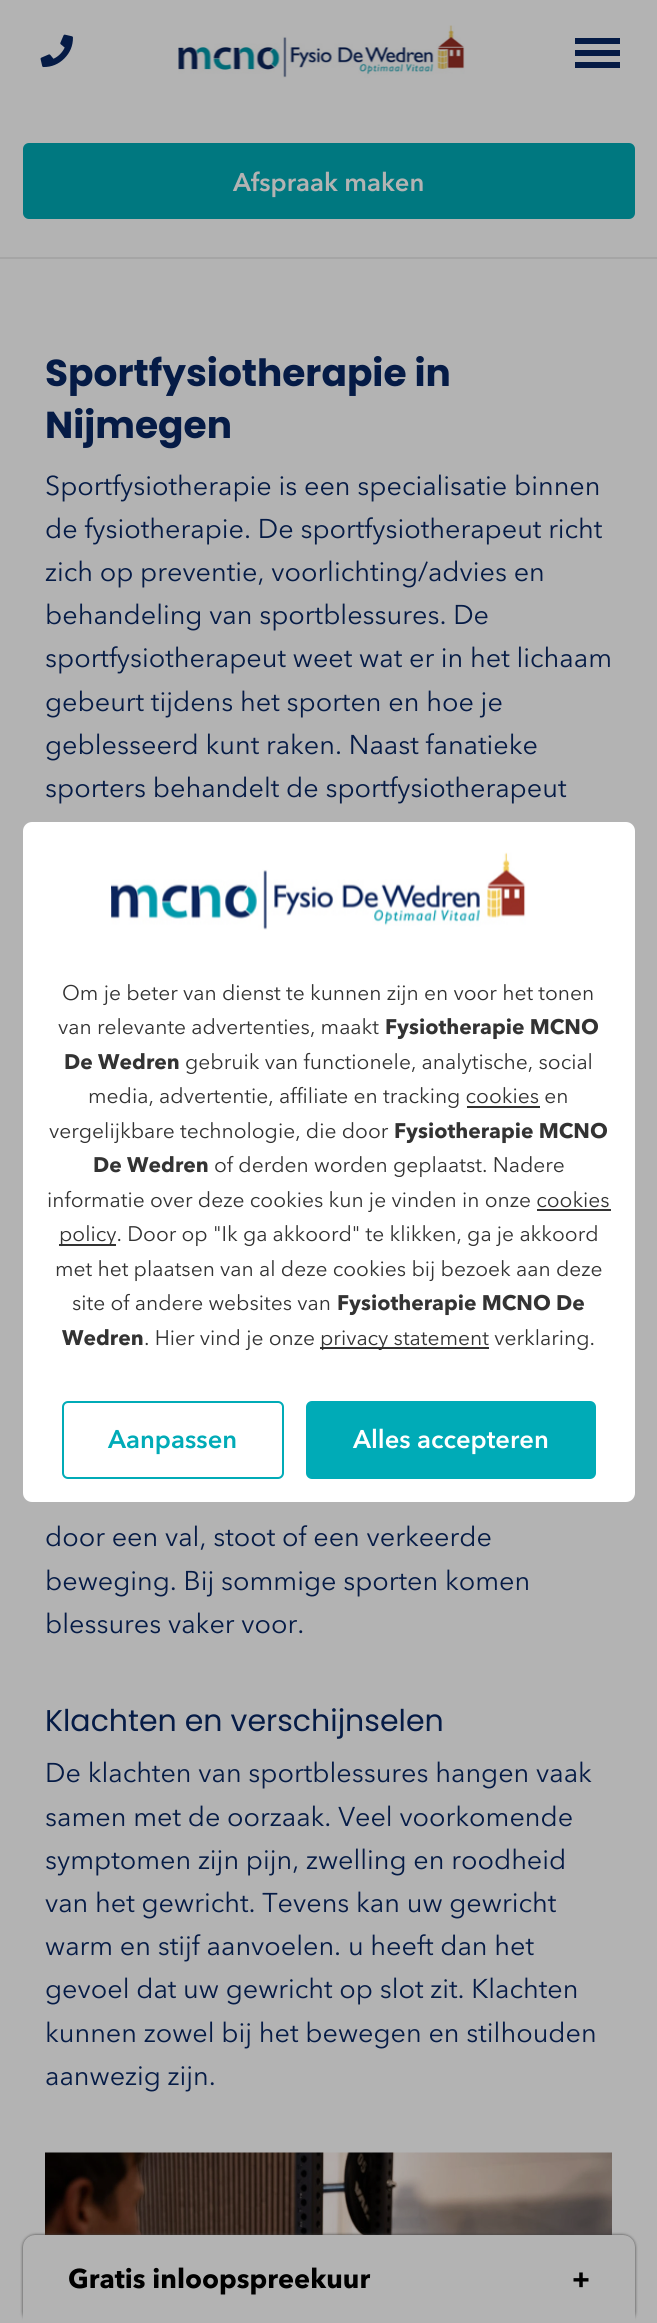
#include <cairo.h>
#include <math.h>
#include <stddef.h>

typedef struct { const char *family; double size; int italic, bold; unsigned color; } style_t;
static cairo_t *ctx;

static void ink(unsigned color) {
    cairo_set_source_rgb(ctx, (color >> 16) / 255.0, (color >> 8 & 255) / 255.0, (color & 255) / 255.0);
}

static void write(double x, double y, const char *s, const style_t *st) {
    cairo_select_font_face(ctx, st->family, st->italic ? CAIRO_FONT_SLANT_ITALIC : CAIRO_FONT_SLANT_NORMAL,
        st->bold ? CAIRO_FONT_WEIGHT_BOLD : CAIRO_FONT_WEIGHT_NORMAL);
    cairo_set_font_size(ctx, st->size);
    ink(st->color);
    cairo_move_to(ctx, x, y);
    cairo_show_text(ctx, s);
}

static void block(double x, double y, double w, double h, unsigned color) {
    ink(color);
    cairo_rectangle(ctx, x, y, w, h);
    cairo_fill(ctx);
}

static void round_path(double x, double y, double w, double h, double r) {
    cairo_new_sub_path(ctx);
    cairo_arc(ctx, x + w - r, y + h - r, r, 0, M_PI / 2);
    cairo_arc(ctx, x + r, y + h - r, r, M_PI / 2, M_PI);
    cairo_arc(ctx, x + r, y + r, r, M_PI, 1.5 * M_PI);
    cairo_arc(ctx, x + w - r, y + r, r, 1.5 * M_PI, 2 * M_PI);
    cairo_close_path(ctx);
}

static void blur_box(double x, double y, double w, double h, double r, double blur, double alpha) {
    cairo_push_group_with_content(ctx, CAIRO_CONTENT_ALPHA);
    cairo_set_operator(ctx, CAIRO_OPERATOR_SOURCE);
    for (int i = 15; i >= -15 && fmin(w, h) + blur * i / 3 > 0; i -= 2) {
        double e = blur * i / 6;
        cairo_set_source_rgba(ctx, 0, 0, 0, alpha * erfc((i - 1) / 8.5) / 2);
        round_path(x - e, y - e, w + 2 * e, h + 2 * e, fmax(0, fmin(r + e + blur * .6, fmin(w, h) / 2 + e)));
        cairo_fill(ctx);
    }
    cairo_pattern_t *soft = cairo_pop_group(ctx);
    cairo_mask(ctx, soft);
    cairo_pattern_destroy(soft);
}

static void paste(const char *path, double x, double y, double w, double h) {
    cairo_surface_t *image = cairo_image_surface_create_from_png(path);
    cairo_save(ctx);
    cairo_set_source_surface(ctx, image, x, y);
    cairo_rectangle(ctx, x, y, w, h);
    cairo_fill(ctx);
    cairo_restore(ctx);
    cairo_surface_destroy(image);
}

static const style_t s1 = {"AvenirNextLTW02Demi", 25.5, 0, 1, 0xb3b3b3};
static const style_t s2 = {"Poppins", 37.5, 0, 1, 0x051b46};
static const style_t s3 = {"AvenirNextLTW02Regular", 27, 0, 0, 0x051b46};
static const style_t s4 = {"Poppins", 30, 0, 0, 0x051b46};
static const style_t s5 = {"AvenirNextLTW02Regular", 21, 0, 0, 0x333333};
static const style_t s6 = {"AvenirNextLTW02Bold", 21, 0, 1, 0x333333};
static const style_t s7 = {"AvenirNextLTW02Demi", 25.5, 0, 1, 0x00abb7};
static const style_t s8 = {"AvenirNextLTW02Demi", 25.5, 0, 1, 0xffffff};
static const style_t s9 = {"AvenirNextLTW02Bold", 27, 0, 1, 0x000000};

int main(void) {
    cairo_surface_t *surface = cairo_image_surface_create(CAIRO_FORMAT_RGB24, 657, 2323);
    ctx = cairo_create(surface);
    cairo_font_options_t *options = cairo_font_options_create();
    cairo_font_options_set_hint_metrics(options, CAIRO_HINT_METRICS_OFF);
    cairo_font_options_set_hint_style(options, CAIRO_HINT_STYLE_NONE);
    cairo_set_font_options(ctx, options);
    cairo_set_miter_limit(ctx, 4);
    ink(0xb3b3b3);
    cairo_paint(ctx);
    block(0, 257, 657, 2, 0xa5a5a5);
    paste("pic1.png", 40, 34, 33, 34);
    paste("pic2.png", 178, 25, 287, 53);
    block(575, 50, 45, 6, 0x051b46);
    block(575, 38, 45, 6, 0x051b46);
    block(575, 62, 45, 6, 0x051b46);
    ink(0x007880);
    round_path(24, 144, 610, 74, 5);
    cairo_fill_preserve(ctx);
    cairo_stroke(ctx);
    write(233, 191, "Afspraak maken", &s1);
    write(45, 386, "Sportfysiotherapie in", &s2);
    write(45, 438, "Nijmegen", &s2);
    write(45, 495, "Sportfysiotherapie is een specialisatie binnen", &s3);
    write(45, 538, "de fysiotherapie. De sportfysiotherapeut richt", &s3);
    write(45, 581, "zich op preventie, voorlichting/advies en", &s3);
    write(45, 624, "behandeling van sportblessures. De", &s3);
    write(45, 667, "sportfysiotherapeut weet wat er in het lichaam", &s3);
    write(45, 711, "gebeurt tijdens het sporten en hoe je", &s3);
    write(45, 754, "geblesseerd kunt raken. Naast fanatieke", &s3);
    write(45, 797, "sporters behandelt de sportfysiotherapeut", &s3);
    write(45, 1546, "door een val, stoot of een verkeerde", &s3);
    write(45, 1590, "beweging. Bij sommige sporten komen", &s3);
    write(45, 1633, "blessures vaker voor.", &s3);
    write(45, 1731, "Klachten en verschijnselen", &s4);
    write(45, 1782, "De klachten van sportblessures hangen vaak", &s3);
    write(45, 1826, "samen met de oorzaak. Veel voorkomende", &s3);
    write(45, 1869, "symptomen zijn pijn, zwelling en roodheid", &s3);
    write(45, 1912, "van het gewricht. Tevens kan uw gewricht", &s3);
    write(45, 1955, "warm en stijf aanvoelen. u heeft dan het", &s3);
    write(45, 1998, "gevoel dat uw gewricht op slot zit. Klachten", &s3);
    write(45, 2042, "kunnen zowel bij het bewegen en stilhouden", &s3);
    write(45, 2085, "aanwezig zijn.", &s3);
    paste("pic3.png", 45, 2152, 567, 83);
    ink(0xffffff);
    round_path(23, 822, 612, 680, 9);
    cairo_fill(ctx);
    paste("pic4.png", 111, 852, 415, 78);
    write(62, 1000, "Om je beter van dienst te kunnen zijn en voor het tonen", &s5);
    write(58, 1034, "van relevante advertenties, maakt", &s5);
    write(385, 1034, "Fysiotherapie MCNO", &s6);
    write(64, 1069, "De Wedren", &s6);
    write(185, 1069, "gebruik van functionele, analytische, social", &s5);
    write(88, 1103, "media, advertentie, affiliate en tracking cookies en", &s5);
    block(467, 1106, 73, 2, 0x333333);
    write(49, 1138, "vergelijkbare technologie, die door", &s5);
    write(394, 1138, "Fysiotherapie MCNO", &s6);
    write(93, 1172, "De Wedren", &s6);
    write(214, 1172, "of derden worden geplaatst. Nadere", &s5);
    write(47, 1207, "informatie over deze cookies kun je vinden in onze cookies", &s5);
    block(59, 1244, 57, 2, 0x333333);
    write(59, 1241, "policy. Door op \"Ik ga akkoord\" te klikken, ga je akkoord", &s5);
    block(537, 1209, 74, 2, 0x333333);
    write(55, 1276, "met het plaatsen van al deze cookies bij bezoek aan deze", &s5);
    write(72, 1310, "site of andere websites van", &s5);
    write(337, 1310, "Fysiotherapie MCNO De", &s6);
    write(62, 1345, "Wedren", &s6);
    write(144, 1345, ". Hier vind je onze", &s5);
    block(320, 1347, 169, 2, 0x333333);
    write(320, 1345, "privacy statement verklaring.", &s5);
    round_path(63, 1402, 220, 76, 5);
    ink(0x00abb7);
    cairo_stroke(ctx);
    write(108, 1448, "Aanpassen", &s7);
    round_path(307, 1402, 288, 76, 5);
    cairo_fill_preserve(ctx);
    cairo_stroke(ctx);
    write(353, 1448, "Alles accepteren", &s8);
    ink(0x424242);
    blur_box(23, 2235, 612, 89, 12, 1.5, 1);
    ink(0xb3b3b3);
    cairo_new_path(ctx);
    cairo_move_to(ctx, 35, 2235);
    cairo_line_to(ctx, 623, 2235);
    cairo_curve_to(ctx, 629.5, 2235, 635, 2240.5, 635, 2247);
    cairo_line_to(ctx, 635, 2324);
    cairo_line_to(ctx, 23, 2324);
    cairo_line_to(ctx, 23, 2247);
    cairo_curve_to(ctx, 23, 2240.5, 28.5, 2235, 35, 2235);
    cairo_close_path(ctx);
    cairo_fill(ctx);
    write(68, 2288, "Gratis inloopspreekuur", &s9);
    write(572, 2288, "+", &s9);
    cairo_surface_write_to_png(surface, "screenshot.png");
    cairo_font_options_destroy(options);
    cairo_destroy(ctx);
    cairo_surface_destroy(surface);
    return 0;
}
